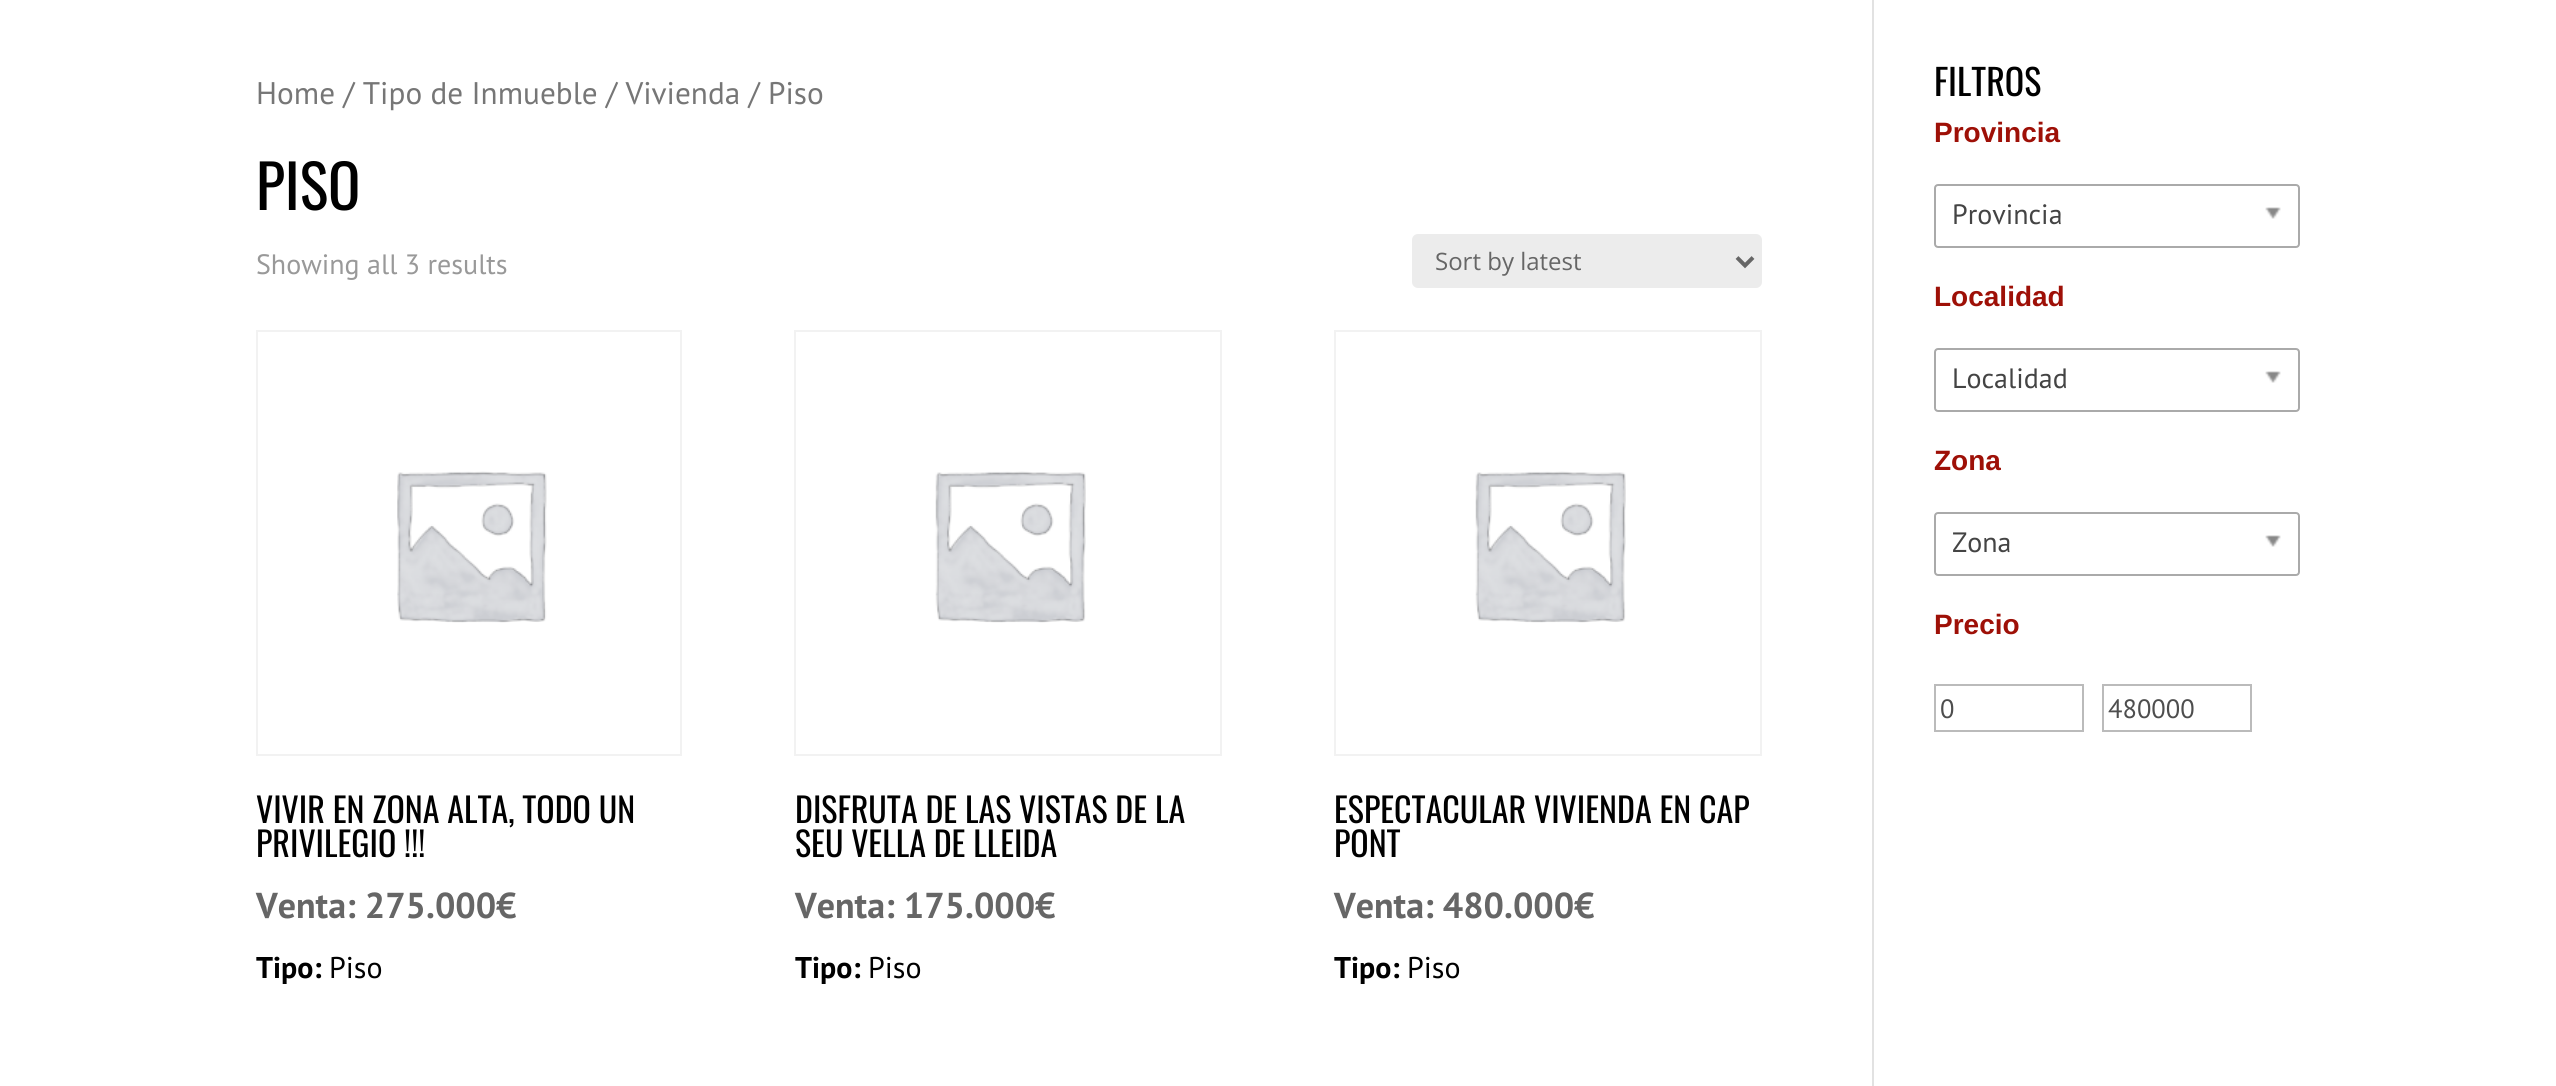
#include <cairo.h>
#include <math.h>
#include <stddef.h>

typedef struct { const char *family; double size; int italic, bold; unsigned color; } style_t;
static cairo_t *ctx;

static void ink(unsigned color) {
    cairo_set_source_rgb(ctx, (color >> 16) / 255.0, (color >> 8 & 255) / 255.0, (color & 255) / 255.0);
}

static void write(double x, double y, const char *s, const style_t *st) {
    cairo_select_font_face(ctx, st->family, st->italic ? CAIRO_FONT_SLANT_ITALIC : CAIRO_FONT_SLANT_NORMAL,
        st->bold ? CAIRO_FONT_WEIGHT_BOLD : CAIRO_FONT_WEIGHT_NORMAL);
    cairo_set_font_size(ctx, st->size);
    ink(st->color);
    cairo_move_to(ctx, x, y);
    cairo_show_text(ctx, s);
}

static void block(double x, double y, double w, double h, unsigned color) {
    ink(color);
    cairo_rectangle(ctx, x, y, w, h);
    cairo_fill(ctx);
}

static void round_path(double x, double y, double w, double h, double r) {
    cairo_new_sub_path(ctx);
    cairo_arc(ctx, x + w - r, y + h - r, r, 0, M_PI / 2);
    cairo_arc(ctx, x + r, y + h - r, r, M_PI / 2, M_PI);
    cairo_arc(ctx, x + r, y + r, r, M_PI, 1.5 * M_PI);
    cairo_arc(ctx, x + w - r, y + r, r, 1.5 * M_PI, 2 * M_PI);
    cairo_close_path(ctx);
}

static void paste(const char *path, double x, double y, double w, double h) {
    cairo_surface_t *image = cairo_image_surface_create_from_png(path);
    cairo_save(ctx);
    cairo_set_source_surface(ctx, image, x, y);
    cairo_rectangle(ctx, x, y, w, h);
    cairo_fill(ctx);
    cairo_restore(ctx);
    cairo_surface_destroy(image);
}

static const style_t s1 = {"PT Sans", 31.25, 0, 0, 0x767676};
static const style_t s2 = {"Oswald", 60, 0, 0, 0x000000};
static const style_t s3 = {"PT Sans", 28, 0, 0, 0x999999};
static const style_t s4 = {"Open Sans", 24, 0, 0, 0x666666};
static const style_t s5 = {"Oswald", 34, 0, 0, 0x000000};
static const style_t s6 = {"PT Sans", 36, 0, 1, 0x666666};
static const style_t s7 = {"PT Sans", 30, 0, 1, 0x000000};
static const style_t s8 = {"PT Sans", 30, 0, 0, 0x000000};
static const style_t s9 = {"Oswald", 36, 0, 0, 0x000000};
static const style_t s10 = {"Liberation Sans", 28, 0, 1, 0x9e1007};
static const style_t s11 = {"PT Sans", 28, 0, 0, 0x444444};
static const style_t s12 = {"PT Sans", 26.5, 0, 0, 0x4e4e4e};

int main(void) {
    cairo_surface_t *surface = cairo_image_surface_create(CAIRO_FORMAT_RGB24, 2556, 1086);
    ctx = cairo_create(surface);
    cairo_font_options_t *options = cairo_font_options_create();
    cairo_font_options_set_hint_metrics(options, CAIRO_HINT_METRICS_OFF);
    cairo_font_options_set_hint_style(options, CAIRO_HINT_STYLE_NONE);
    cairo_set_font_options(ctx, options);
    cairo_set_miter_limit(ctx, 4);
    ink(0xffffff);
    cairo_paint(ctx);
    block(1872, 0, 2, 1086, 0xe2e2e2);
    write(256, 104, "Home / Tipo de Inmueble / Vivienda / Piso", &s1);
    write(256, 210, "PISO", &s2);
    write(256, 274, "Showing all 3 results", &s3);
    ink(0xececec);
    round_path(1412, 234, 350, 54, 6);
    cairo_fill(ctx);
    cairo_new_path(ctx);
    cairo_move_to(ctx, 1737, 257.5);
    cairo_line_to(ctx, 1745, 265.5);
    cairo_line_to(ctx, 1753, 257.5);
    ink(0x666666);
    cairo_set_line_width(ctx, 4);
    cairo_stroke(ctx);
    write(1435, 270, "Sort by latest", &s4);
    cairo_rectangle(ctx, 257, 331, 424, 424);
    ink(0xf2f2f2);
    cairo_set_line_width(ctx, 2);
    cairo_stroke(ctx);
    paste("pic1.png", 397, 471, 150, 152);
    write(256, 823, "VIVIR EN ZONA ALTA, TODO UN", &s5);
    write(256, 857, "PRIVILEGIO !!!", &s5);
    write(256, 918, "Venta: 275.000€", &s6);
    write(256, 978, "Tipo:", &s7);
    write(329, 978, "Piso", &s8);
    cairo_rectangle(ctx, 795, 331, 426, 424);
    ink(0xf2f2f2);
    cairo_stroke(ctx);
    paste("pic2.png", 935, 471, 151, 152);
    write(795, 823, "DISFRUTA DE LAS VISTAS DE LA", &s5);
    write(795, 857, "SEU VELLA DE LLEIDA", &s5);
    write(795, 918, "Venta: 175.000€", &s6);
    write(795, 978, "Tipo:", &s7);
    write(868, 978, "Piso", &s8);
    cairo_rectangle(ctx, 1335, 331, 426, 424);
    ink(0xf2f2f2);
    cairo_stroke(ctx);
    paste("pic2.png", 1475, 471, 151, 152);
    write(1334, 823, "ESPECTACULAR VIVIENDA EN CAP", &s5);
    write(1334, 857, "PONT", &s5);
    write(1334, 918, "Venta: 480.000€", &s6);
    write(1334, 978, "Tipo:", &s7);
    write(1407, 978, "Piso", &s8);
    write(1934, 96, "FILTROS", &s9);
    write(1934, 142, "Provincia", &s10);
    round_path(1935, 185, 364, 62, 3);
    ink(0xaaaaaa);
    cairo_stroke(ctx);
    write(1952, 224, "Provincia", &s11);
    paste("pic3.png", 2265, 207, 16, 12);
    write(1934, 306, "Localidad", &s10);
    round_path(1935, 349, 364, 62, 3);
    ink(0xaaaaaa);
    cairo_stroke(ctx);
    write(1952, 388, "Localidad", &s11);
    paste("pic3.png", 2265, 371, 16, 12);
    write(1934, 470, "Zona", &s10);
    round_path(1935, 513, 364, 62, 3);
    ink(0xaaaaaa);
    cairo_stroke(ctx);
    write(1952, 552, "Zona", &s11);
    paste("pic3.png", 2265, 535, 16, 12);
    write(1934, 634, "Precio", &s10);
    cairo_rectangle(ctx, 1935, 685, 148, 46);
    ink(0xbbbbbb);
    cairo_stroke(ctx);
    write(1940, 718, "0", &s12);
    cairo_rectangle(ctx, 2103, 685, 148, 46);
    ink(0xbbbbbb);
    cairo_stroke(ctx);
    write(2108, 718, "480000", &s12);
    cairo_surface_write_to_png(surface, "screenshot.png");
    cairo_font_options_destroy(options);
    cairo_destroy(ctx);
    cairo_surface_destroy(surface);
    return 0;
}
